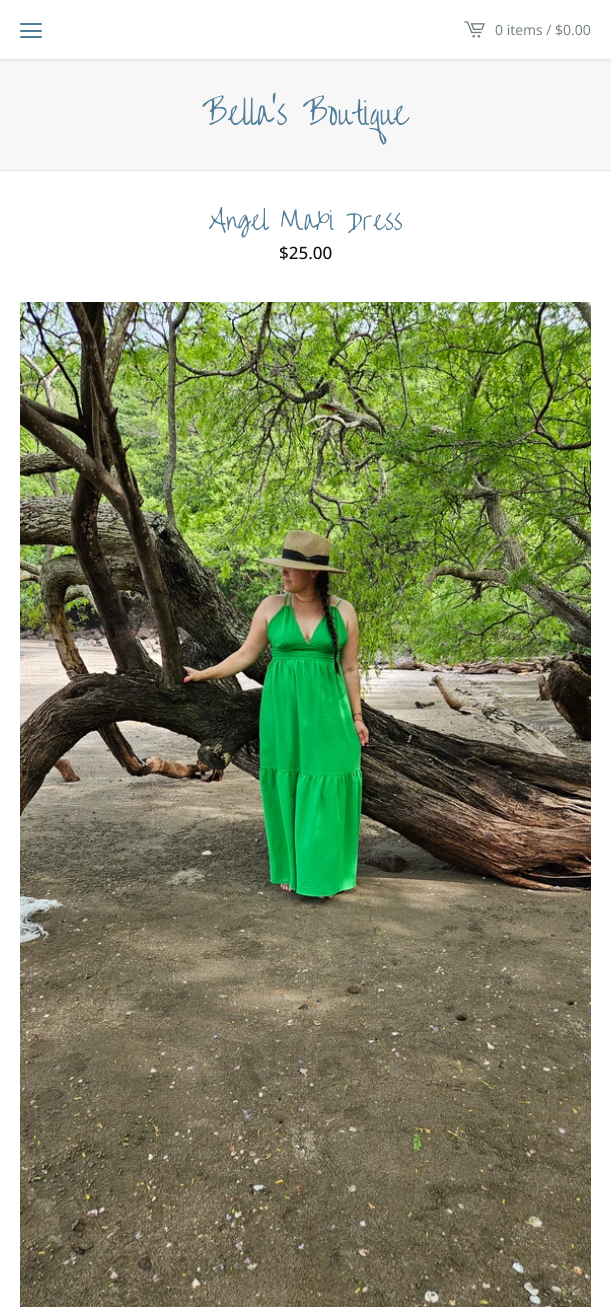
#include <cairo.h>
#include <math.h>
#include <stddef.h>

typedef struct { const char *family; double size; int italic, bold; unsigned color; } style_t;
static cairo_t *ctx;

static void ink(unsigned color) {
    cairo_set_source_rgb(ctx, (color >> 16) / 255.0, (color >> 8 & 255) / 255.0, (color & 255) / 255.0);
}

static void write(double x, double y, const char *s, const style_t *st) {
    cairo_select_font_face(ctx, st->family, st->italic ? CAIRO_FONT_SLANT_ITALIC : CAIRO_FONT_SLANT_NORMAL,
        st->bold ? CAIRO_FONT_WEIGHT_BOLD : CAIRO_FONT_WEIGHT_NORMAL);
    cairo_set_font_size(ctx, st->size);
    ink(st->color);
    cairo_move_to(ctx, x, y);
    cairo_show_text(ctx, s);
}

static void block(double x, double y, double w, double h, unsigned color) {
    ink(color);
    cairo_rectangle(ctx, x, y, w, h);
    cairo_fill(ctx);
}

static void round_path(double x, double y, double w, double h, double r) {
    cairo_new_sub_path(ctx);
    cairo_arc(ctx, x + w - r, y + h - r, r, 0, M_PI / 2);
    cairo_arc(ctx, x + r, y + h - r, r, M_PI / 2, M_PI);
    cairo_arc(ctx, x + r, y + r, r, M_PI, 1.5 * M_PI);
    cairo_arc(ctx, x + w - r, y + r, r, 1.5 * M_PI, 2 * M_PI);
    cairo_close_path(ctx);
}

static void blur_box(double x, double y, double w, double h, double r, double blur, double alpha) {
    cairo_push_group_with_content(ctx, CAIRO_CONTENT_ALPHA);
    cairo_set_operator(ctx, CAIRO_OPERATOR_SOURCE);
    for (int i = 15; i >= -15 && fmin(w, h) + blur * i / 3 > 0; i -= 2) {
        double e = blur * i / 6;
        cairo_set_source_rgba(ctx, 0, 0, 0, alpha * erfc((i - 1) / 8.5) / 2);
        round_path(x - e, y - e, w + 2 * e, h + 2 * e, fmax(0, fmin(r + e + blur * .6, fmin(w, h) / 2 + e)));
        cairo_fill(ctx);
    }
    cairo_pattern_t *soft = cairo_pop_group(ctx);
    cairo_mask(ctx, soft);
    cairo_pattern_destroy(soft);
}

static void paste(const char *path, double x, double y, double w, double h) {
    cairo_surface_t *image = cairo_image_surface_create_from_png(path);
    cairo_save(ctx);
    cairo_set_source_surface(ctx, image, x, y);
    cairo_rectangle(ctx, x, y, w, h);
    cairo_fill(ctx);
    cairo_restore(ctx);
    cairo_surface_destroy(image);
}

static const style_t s1 = {"Open Sans", 14, 0, 0, 0x717c82};
static const style_t s2 = {"Over the Rainbow", 30, 0, 0, 0x507b96};
static const style_t s3 = {"Over the Rainbow", 24, 0, 0, 0x507b96};
static const style_t s4 = {"Open Sans Medium", 17, 0, 0, 0x111111};

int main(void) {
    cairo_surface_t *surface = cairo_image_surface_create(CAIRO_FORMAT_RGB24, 611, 1307);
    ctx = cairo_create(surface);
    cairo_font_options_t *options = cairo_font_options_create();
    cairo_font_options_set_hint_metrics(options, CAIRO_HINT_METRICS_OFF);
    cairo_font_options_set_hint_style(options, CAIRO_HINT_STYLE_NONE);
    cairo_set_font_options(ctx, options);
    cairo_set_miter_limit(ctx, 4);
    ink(0xffffff);
    cairo_paint(ctx);
    block(0, 60, 611, 110, 0xf7f7f7);
    ink(0xe5e5e5);
    blur_box(0, 1, 611, 60, 0, 1.5, 1);
    block(0, 0, 611, 59, 0xffffff);
    block(0, 59, 611, 1, 0xe5e5e5);
    ink(0x507b96);
    round_path(20, 23, 22, 2, 1);
    cairo_fill(ctx);
    round_path(20, 30, 22, 2, 1);
    cairo_fill(ctx);
    round_path(20, 36, 22, 2, 1);
    cairo_fill(ctx);
    paste("pic1.png", 464, 21, 21, 17);
    write(495, 35, "0 items / $0.00", &s1);
    block(0, 170, 611, 1, 0xe5e5e5);
    write(202, 125, "Bella's Boutique", &s2);
    write(208, 230, "Angel Maxi Dress", &s3);
    write(279, 259, "$25.00", &s4);
    paste("pic2.png", 20, 302, 571, 1005);
    cairo_surface_write_to_png(surface, "screenshot.png");
    cairo_font_options_destroy(options);
    cairo_destroy(ctx);
    cairo_surface_destroy(surface);
    return 0;
}
